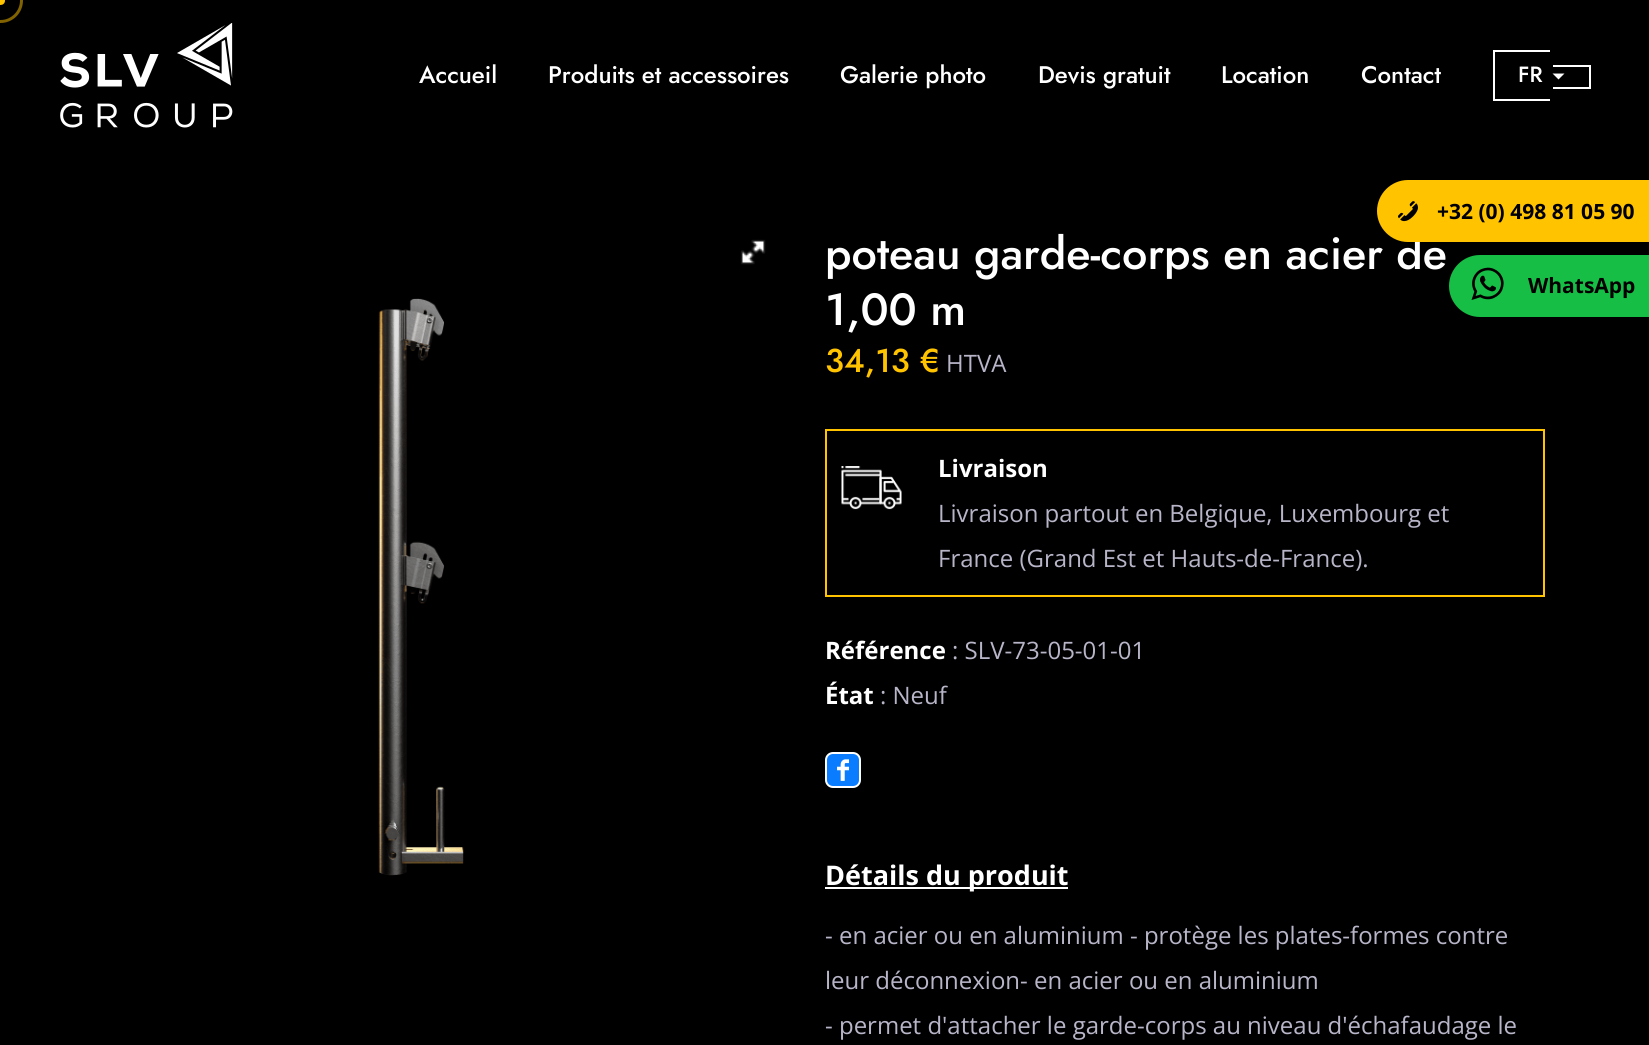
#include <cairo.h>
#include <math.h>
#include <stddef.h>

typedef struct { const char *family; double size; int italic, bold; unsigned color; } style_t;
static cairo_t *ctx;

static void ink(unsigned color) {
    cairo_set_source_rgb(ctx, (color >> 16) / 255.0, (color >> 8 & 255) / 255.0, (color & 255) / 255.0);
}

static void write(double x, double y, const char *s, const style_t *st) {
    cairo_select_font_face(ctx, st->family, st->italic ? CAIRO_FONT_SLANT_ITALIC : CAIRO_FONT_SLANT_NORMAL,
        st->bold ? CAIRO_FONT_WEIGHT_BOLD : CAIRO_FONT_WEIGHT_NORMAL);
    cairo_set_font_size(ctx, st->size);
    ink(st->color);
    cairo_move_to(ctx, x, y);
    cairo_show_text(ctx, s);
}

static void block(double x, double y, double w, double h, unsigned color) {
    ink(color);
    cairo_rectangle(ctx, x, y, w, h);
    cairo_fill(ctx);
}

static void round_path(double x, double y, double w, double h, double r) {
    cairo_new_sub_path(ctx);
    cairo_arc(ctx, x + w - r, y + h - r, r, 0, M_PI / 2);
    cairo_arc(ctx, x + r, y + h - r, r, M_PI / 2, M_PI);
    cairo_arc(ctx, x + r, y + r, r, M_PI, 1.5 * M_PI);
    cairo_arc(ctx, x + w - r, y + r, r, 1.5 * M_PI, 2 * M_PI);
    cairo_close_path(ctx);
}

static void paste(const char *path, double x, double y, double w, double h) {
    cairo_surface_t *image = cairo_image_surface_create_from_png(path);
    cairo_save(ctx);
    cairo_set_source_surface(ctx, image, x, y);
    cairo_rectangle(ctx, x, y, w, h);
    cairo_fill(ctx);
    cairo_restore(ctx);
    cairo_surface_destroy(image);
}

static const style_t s1 = {"Jost Medium", 24, 0, 0, 0xffffff};
static const style_t s2 = {"Jost Medium", 22, 0, 0, 0xffffff};
static const style_t s3 = {"Jost Medium", 45, 0, 0, 0xffffff};
static const style_t s4 = {"Open Sans", 21, 0, 1, 0x000000};
static const style_t s5 = {"Jost Medium", 33, 0, 0, 0xffc300};
static const style_t s6 = {"Open Sans", 24, 0, 0, 0xb9b5c9};
static const style_t s7 = {"Open Sans", 24, 0, 1, 0xffffff};
static const style_t s8 = {"Open Sans", 27, 0, 1, 0xffffff};

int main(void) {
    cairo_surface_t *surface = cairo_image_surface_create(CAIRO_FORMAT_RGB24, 1649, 1045);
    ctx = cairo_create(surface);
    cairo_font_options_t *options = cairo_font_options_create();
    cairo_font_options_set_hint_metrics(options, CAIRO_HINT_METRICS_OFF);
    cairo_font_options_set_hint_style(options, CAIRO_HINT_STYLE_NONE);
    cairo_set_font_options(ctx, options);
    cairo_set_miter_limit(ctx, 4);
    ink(0x000000);
    cairo_paint(ctx);
    cairo_arc(ctx, 0.5, 0.5, 21, 0, 2 * M_PI);
    ink(0x806200);
    cairo_set_line_width(ctx, 3);
    cairo_stroke(ctx);
    ink(0xffc300);
    cairo_arc(ctx, 0.5, 0.5, 4.5, 0, 2 * M_PI);
    cairo_fill(ctx);
    paste("pic1.png", 60, 23, 173, 105);
    write(419, 83, "Accueil", &s1);
    write(548, 83, "Produits et accessoires", &s1);
    write(840, 83, "Galerie photo", &s1);
    write(1038, 83, "Devis gratuit", &s1);
    write(1221, 83, "Location", &s1);
    write(1361, 83, "Contact", &s1);
    block(1493, 50, 57, 2, 0xffffff);
    block(1493, 99, 57, 2, 0xffffff);
    block(1493, 50, 2, 51, 0xffffff);
    block(1553, 65, 37, 2, 0xffffff);
    block(1589, 65, 2, 24, 0xffffff);
    block(1553, 87, 37, 2, 0xffffff);
    write(1518, 82, "FR", &s2);
    cairo_new_path(ctx);
    cairo_move_to(ctx, 1552.5, 73.5);
    cairo_line_to(ctx, 1564.5, 73.5);
    cairo_line_to(ctx, 1558.5, 79.5);
    cairo_close_path(ctx);
    cairo_fill(ctx);
    write(825, 269, "poteau garde-corps en acier de", &s3);
    ink(0xffc300);
    cairo_new_path(ctx);
    cairo_move_to(ctx, 1408, 180);
    cairo_line_to(ctx, 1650, 180);
    cairo_line_to(ctx, 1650, 242);
    cairo_line_to(ctx, 1408, 242);
    cairo_curve_to(ctx, 1391, 242, 1377, 228, 1377, 211);
    cairo_curve_to(ctx, 1377, 194, 1391, 180, 1408, 180);
    cairo_close_path(ctx);
    cairo_fill(ctx);
    paste("pic2.png", 1398, 201, 20, 21);
    write(1437, 219, "+32 (0) 498 81 05 90", &s4);
    paste("pic3.png", 740, 239, 26, 26);
    paste("pic4.png", 378, 298, 86, 578);
    write(825, 325, "1,00 m", &s3);
    write(825, 372, "34,13 €", &s5);
    write(946, 372, "HTVA", &s6);
    cairo_rectangle(ctx, 826, 430, 718, 166);
    ink(0xffc300);
    cairo_set_line_width(ctx, 2);
    cairo_stroke(ctx);
    paste("pic5.png", 841, 466, 61, 44);
    write(938, 477, "Livraison", &s7);
    write(938, 522, "Livraison partout en Belgique, Luxembourg et", &s6);
    write(938, 567, "France (Grand Est et Hauts-de-France).", &s6);
    write(825, 659, "Référence", &s7);
    write(952, 659, ": SLV-73-05-01-01", &s6);
    write(825, 704, "État", &s7);
    write(880, 704, ": Neuf", &s6);
    ink(0x0a7cff);
    round_path(826, 753, 34, 34, 7);
    cairo_fill_preserve(ctx);
    ink(0xffffff);
    cairo_stroke(ctx);
    paste("pic6.png", 837, 759, 12, 22);
    block(825, 887, 243, 2, 0xffffff);
    write(825, 885, "Détails du produit", &s8);
    write(825, 944, "- en acier ou en aluminium - protège les plates-formes contre", &s6);
    write(825, 989, "leur déconnexion- en acier ou en aluminium", &s6);
    write(825, 1034, "- permet d'attacher le garde-corps au niveau d'échafaudage le", &s6);
    ink(0x16be45);
    cairo_new_path(ctx);
    cairo_move_to(ctx, 1480, 255);
    cairo_line_to(ctx, 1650, 255);
    cairo_line_to(ctx, 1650, 317);
    cairo_line_to(ctx, 1480, 317);
    cairo_curve_to(ctx, 1463, 317, 1449, 303, 1449, 286);
    cairo_curve_to(ctx, 1449, 269, 1463, 255, 1480, 255);
    cairo_close_path(ctx);
    cairo_fill(ctx);
    paste("pic7.png", 1471, 267, 33, 33);
    write(1528, 293, "WhatsApp", &s4);
    cairo_surface_write_to_png(surface, "screenshot.png");
    cairo_font_options_destroy(options);
    cairo_destroy(ctx);
    cairo_surface_destroy(surface);
    return 0;
}
